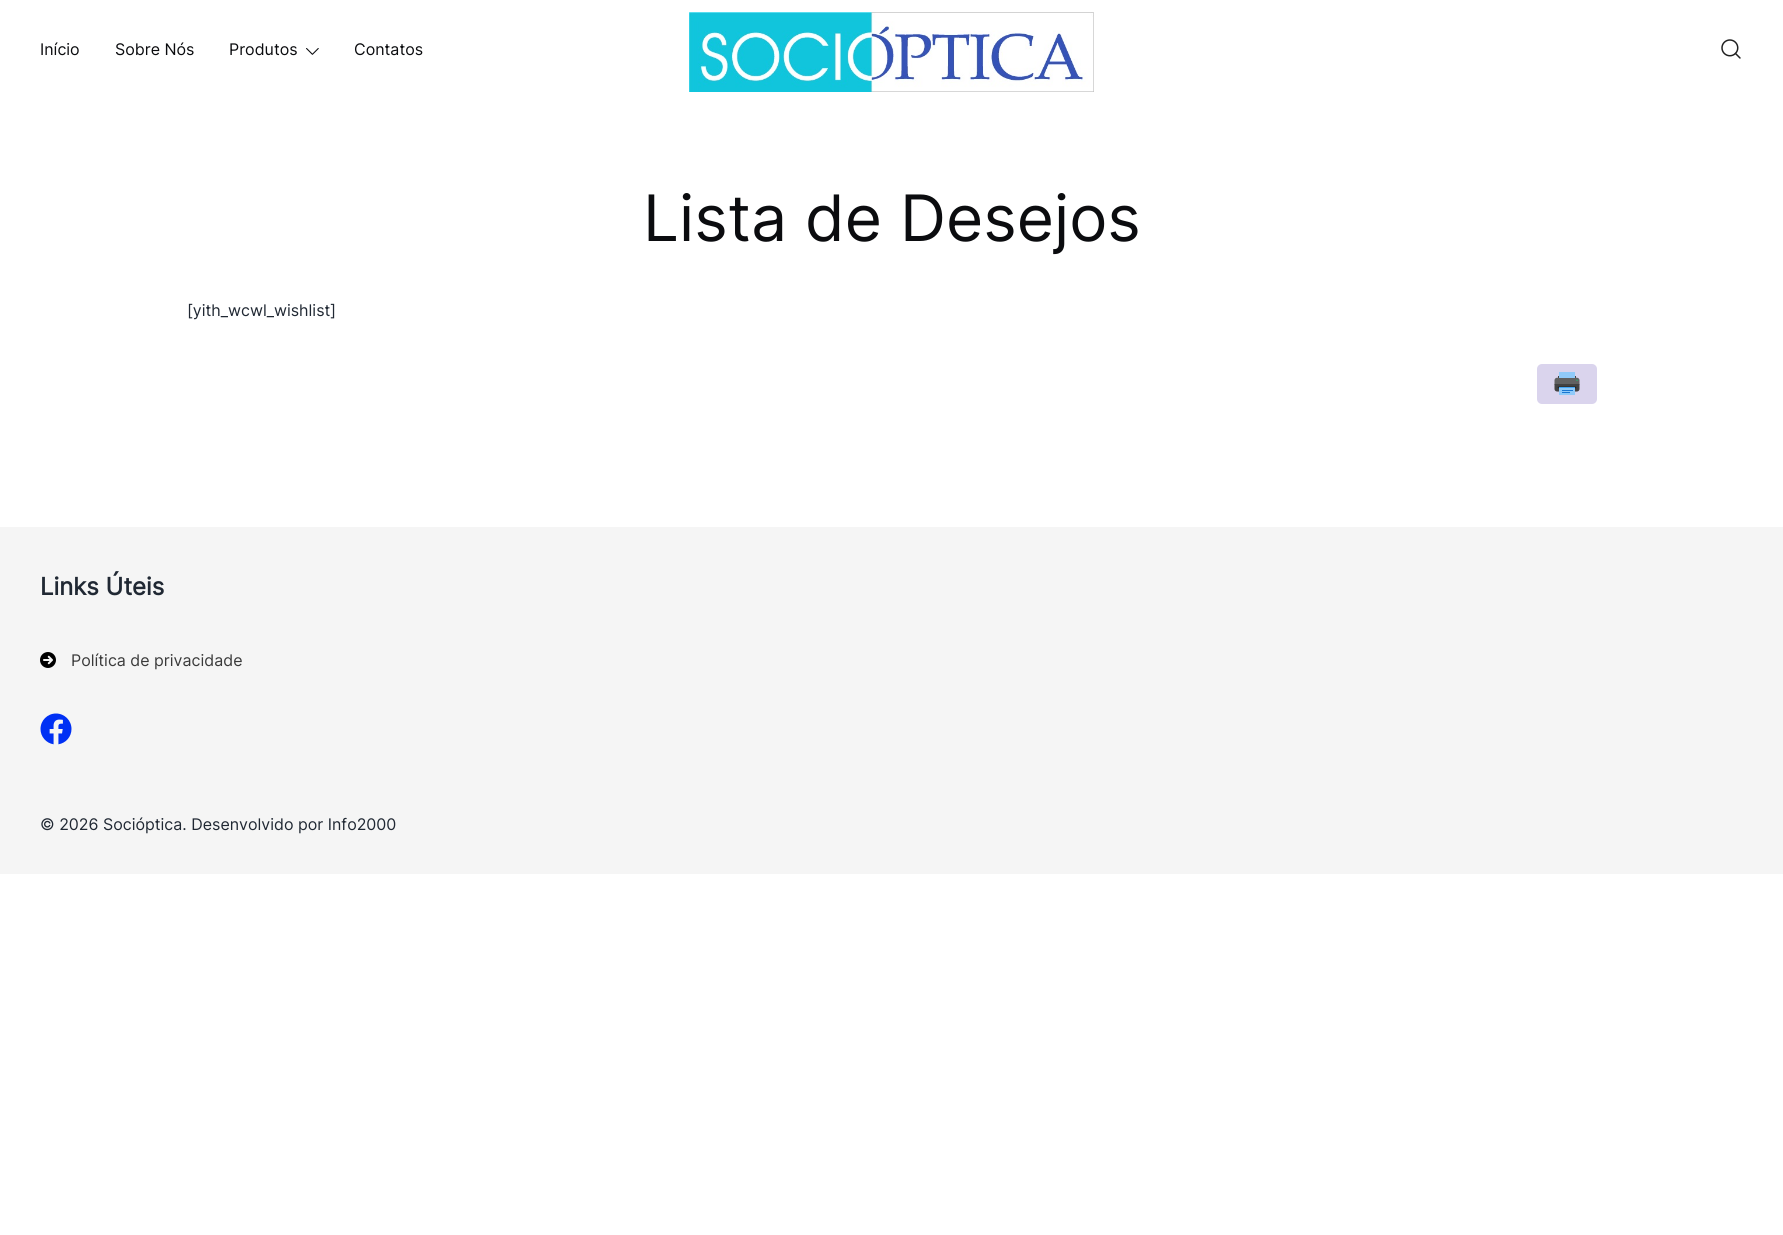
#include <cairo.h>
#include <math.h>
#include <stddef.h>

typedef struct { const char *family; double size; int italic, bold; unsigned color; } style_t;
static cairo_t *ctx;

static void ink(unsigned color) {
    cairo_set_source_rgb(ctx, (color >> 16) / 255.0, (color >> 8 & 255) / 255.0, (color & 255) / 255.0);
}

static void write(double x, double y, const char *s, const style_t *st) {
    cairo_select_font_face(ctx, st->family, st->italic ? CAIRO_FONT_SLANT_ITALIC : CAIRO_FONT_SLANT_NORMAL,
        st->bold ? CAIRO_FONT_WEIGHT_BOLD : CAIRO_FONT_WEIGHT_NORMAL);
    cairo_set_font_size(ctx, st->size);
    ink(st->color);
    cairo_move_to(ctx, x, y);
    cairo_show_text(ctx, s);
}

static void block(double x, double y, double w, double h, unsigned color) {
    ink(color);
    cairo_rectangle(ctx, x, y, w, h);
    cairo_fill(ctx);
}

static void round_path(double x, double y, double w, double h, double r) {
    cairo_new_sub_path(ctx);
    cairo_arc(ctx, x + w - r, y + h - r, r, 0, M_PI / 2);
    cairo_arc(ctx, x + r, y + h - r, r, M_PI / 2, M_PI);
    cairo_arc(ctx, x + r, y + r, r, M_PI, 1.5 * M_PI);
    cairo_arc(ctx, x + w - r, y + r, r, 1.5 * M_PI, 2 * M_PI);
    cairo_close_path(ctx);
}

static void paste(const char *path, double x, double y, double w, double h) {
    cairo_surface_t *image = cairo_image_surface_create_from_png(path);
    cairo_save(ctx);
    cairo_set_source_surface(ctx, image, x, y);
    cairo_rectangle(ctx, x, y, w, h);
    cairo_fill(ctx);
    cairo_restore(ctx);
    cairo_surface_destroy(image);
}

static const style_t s1 = {"Inter", 16, 0, 0, 0x0b0c0f};
static const style_t s2 = {"Inter", 64, 0, 0, 0x0b0c0f};
static const style_t s3 = {"Inter", 16, 0, 0, 0x202833};
static const style_t s4 = {"Inter", 24, 0, 1, 0x202833};
static const style_t s5 = {"Inter", 16, 0, 0, 0x3a3a3a};

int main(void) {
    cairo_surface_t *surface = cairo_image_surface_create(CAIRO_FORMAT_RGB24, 1783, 1235);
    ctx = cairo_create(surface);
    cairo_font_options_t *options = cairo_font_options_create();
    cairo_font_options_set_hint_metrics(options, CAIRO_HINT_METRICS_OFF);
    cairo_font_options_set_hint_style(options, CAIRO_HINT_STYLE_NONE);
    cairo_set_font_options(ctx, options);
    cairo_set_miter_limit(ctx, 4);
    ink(0xffffff);
    cairo_paint(ctx);
    write(40, 55, "Início", &s1);
    write(115, 55, "Sobre Nós", &s1);
    write(229, 55, "Produtos", &s1);
    paste("pic1.png", 306, 48, 13, 7);
    write(354, 55, "Contatos", &s1);
    paste("pic2.png", 689, 12, 405, 80);
    paste("pic3.png", 1721, 39, 20, 20);
    write(643, 241, "Lista de Desejos", &s2);
    write(187, 316, "[yith_wcwl_wishlist]", &s3);
    ink(0xdad4ed);
    round_path(1537, 364, 60, 40, 5);
    cairo_fill(ctx);
    paste("pic4.png", 1554, 372, 26, 23);
    block(0, 527, 1783, 347, 0xf5f5f5);
    write(40, 595, "Links Úteis", &s4);
    paste("pic5.png", 40, 652, 16, 16);
    write(71, 666, "Política de privacidade", &s5);
    paste("pic6.png", 40, 713, 32, 32);
    write(40, 830, "© 2026 Socióptica. Desenvolvido por Info2000", &s3);
    cairo_surface_write_to_png(surface, "screenshot.png");
    cairo_font_options_destroy(options);
    cairo_destroy(ctx);
    cairo_surface_destroy(surface);
    return 0;
}
